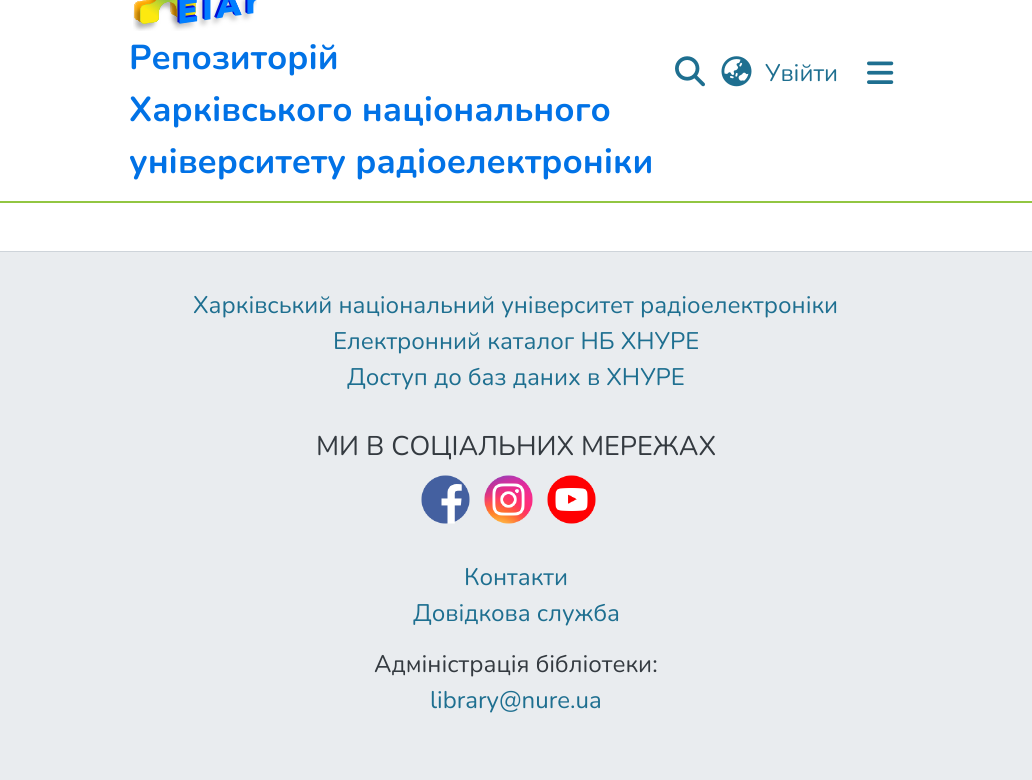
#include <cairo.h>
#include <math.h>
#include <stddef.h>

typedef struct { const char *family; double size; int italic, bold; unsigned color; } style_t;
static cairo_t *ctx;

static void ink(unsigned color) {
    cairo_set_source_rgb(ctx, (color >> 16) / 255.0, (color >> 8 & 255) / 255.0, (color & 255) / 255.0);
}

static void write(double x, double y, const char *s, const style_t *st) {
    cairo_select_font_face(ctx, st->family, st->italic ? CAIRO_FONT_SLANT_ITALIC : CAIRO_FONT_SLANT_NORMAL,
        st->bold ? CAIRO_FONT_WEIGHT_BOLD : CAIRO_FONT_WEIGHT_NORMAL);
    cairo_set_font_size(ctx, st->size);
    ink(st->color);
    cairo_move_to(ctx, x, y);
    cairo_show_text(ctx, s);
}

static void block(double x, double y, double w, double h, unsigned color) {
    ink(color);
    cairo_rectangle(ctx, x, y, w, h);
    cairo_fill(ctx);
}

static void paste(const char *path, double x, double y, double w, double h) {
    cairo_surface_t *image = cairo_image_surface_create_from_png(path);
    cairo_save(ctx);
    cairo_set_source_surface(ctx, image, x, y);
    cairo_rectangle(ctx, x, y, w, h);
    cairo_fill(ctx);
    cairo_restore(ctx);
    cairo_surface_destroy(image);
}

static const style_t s1 = {"Nunito", 34.5, 0, 1, 0x0172e6};
static const style_t s2 = {"Nunito", 24, 0, 0, 0x1e6f90};
static const style_t s3 = {"Nunito", 27, 0, 0, 0x343a40};
static const style_t s4 = {"Nunito", 24, 0, 0, 0x343a40};

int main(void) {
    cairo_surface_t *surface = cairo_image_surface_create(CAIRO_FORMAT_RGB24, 1032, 780);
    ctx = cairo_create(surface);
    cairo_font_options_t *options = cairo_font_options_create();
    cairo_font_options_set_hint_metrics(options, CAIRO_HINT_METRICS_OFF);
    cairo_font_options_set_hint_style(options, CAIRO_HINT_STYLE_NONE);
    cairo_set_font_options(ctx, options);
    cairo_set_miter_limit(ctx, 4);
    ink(0xffffff);
    cairo_paint(ctx);
    block(0, 201, 1032, 2, 0x92c642);
    paste("pic1.png", 133, 0, 124, 31);
    write(129, 69, "Репозиторій", &s1);
    write(129, 121, "Харківського національного", &s1);
    write(129, 173, "університету радіоелектроніки", &s1);
    paste("pic2.png", 675, 56, 30, 31);
    paste("pic3.png", 721, 56, 31, 31);
    write(765, 81, "Увійти", &s2);
    paste("pic4.png", 867, 61, 27, 23);
    block(0, 251, 1032, 1, 0xced4da);
    block(0, 252, 1032, 528, 0xe9ecef);
    write(193, 313, "Харківський національний університет радіоелектроніки", &s2);
    write(333, 349, "Електронний каталог НБ ХНУРЕ", &s2);
    write(347, 385, "Доступ до баз даних в ХНУРЕ", &s2);
    write(316, 455, "МИ В СОЦІАЛЬНИХ МЕРЕЖАХ", &s3);
    paste("pic5.png", 421, 475, 49, 49);
    paste("pic6.png", 484, 475, 49, 49);
    paste("pic7.png", 547, 475, 49, 49);
    write(464, 585, "Контакти", &s2);
    write(413, 621, "Довідкова служба", &s2);
    write(374, 672, "Адміністрація бібліотеки:", &s4);
    write(430, 708, "library@nure.ua", &s2);
    cairo_surface_write_to_png(surface, "screenshot.png");
    cairo_font_options_destroy(options);
    cairo_destroy(ctx);
    cairo_surface_destroy(surface);
    return 0;
}
